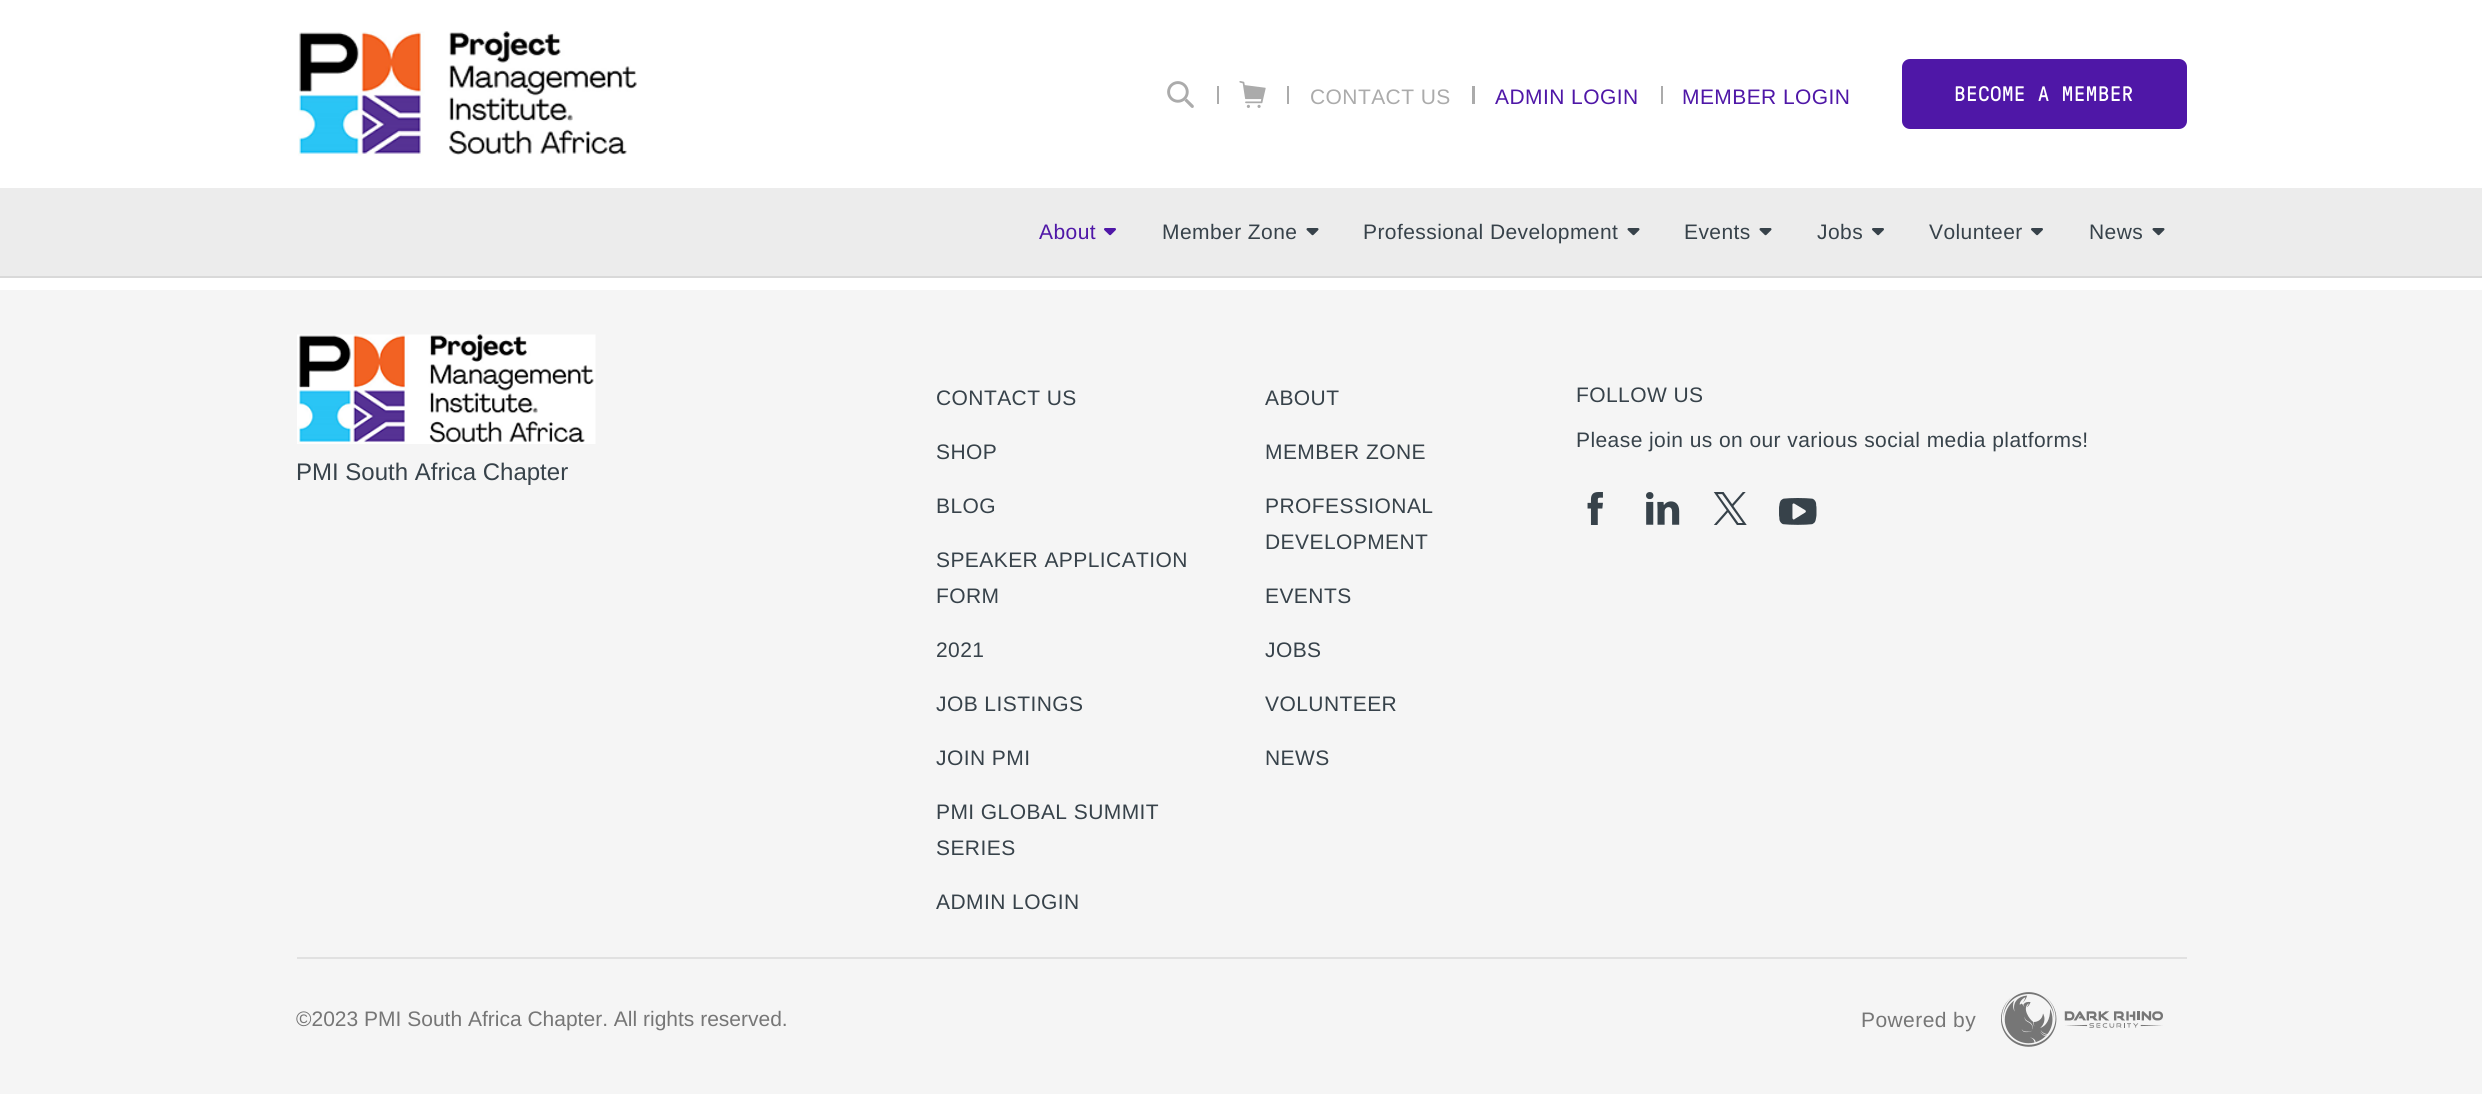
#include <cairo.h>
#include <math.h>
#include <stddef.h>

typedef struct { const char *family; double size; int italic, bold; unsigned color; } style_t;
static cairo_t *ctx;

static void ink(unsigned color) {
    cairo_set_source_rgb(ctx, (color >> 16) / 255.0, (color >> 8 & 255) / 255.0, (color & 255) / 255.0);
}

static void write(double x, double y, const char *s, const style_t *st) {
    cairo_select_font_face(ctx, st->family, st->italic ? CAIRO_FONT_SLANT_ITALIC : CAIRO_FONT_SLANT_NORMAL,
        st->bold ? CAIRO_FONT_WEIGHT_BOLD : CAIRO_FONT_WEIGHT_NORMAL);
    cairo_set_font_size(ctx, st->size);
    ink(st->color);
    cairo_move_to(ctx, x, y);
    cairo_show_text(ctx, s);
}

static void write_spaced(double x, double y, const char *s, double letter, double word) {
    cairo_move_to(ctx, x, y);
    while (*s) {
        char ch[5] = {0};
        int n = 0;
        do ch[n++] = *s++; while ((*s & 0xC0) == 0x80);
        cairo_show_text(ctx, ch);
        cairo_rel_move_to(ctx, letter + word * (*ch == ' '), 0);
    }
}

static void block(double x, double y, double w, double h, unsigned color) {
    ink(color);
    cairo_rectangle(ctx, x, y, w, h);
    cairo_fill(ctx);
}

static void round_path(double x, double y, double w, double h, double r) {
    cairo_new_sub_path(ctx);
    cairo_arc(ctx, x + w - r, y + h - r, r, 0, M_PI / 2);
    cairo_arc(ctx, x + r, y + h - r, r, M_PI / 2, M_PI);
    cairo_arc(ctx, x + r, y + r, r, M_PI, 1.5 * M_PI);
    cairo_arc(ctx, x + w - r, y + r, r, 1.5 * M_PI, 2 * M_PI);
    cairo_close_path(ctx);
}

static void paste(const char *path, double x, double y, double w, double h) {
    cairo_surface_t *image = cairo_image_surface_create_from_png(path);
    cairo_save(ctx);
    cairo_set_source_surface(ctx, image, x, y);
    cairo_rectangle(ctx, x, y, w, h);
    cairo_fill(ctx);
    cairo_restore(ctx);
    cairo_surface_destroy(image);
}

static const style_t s1 = {"Liberation Sans", 24, 0, 0, 0x37424a};
static const style_t s2 = {"Liberation Sans", 21, 0, 0, 0x767676};

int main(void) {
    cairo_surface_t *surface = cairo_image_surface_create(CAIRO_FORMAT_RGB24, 2482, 1094);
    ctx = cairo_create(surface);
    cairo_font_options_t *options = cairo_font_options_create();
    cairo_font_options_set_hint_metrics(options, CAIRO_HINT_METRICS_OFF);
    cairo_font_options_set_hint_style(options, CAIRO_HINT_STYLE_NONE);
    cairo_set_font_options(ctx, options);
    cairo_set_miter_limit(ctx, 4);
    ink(0xffffff);
    cairo_paint(ctx);
    paste("pic1.png", 298, 31, 339, 125);
    paste("pic2.png", 1167, 81, 27, 27);
    block(1217, 86, 2, 18, 0xababab);
    paste("pic3.png", 1239, 81, 27, 27);
    block(1287, 86, 2, 18, 0xababab);
    cairo_select_font_face(ctx, "Liberation Sans", CAIRO_FONT_SLANT_NORMAL, CAIRO_FONT_WEIGHT_NORMAL);
    cairo_set_font_size(ctx, 21);
    write_spaced(1310, 104, "CONTACT US", 0.42, 0);
    block(1472, 86, 3, 18, 0xababab);
    ink(0x4f17a7);
    write_spaced(1495, 104, "ADMIN LOGIN", 0.42, 0);
    block(1661, 86, 2, 18, 0xababab);
    ink(0x4f17a7);
    write_spaced(1682, 104, "MEMBER LOGIN", 0.42, 0);
    round_path(1902, 59, 285, 70, 8);
    cairo_fill(ctx);
    cairo_select_font_face(ctx, "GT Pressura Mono", CAIRO_FONT_SLANT_NORMAL, CAIRO_FONT_WEIGHT_NORMAL);
    ink(0xffffff);
    write_spaced(1954, 101, "BECOME A MEMBER", 0.42, 0);
    block(0, 188, 2482, 88, 0xececec);
    block(0, 276, 2482, 2, 0xd9d9d9);
    cairo_select_font_face(ctx, "Liberation Sans", CAIRO_FONT_SLANT_NORMAL, CAIRO_FONT_WEIGHT_NORMAL);
    ink(0x4f17a7);
    write_spaced(1039, 239, "About", 0.42, 0);
    paste("pic4.png", 1104, 228, 12, 8);
    ink(0x37424a);
    write_spaced(1162, 239, "Member Zone", 0.42, 0);
    paste("pic5.png", 1306, 228, 13, 8);
    write_spaced(1363, 239, "Professional Development", 0.42, 0);
    paste("pic5.png", 1627, 228, 13, 8);
    write_spaced(1684, 239, "Events", 0.42, 0);
    paste("pic5.png", 1759, 228, 13, 8);
    write_spaced(1817, 239, "Jobs", 0.42, 0);
    paste("pic6.png", 1872, 228, 12, 8);
    write_spaced(1929, 239, "Volunteer", 0.42, 0);
    paste("pic6.png", 2031, 228, 12, 8);
    write_spaced(2089, 239, "News", 0.42, 0);
    paste("pic5.png", 2152, 228, 13, 8);
    block(0, 290, 2482, 804, 0xf5f5f5);
    paste("pic7.png", 297, 334, 299, 110);
    write(296, 480, "PMI South Africa Chapter", &s1);
    cairo_set_font_size(ctx, 21);
    write_spaced(936, 405, "CONTACT US", 0.42, 0);
    write_spaced(936, 459, "SHOP", 0.42, 0);
    write_spaced(936, 513, "BLOG", 0.42, 0);
    write_spaced(936, 567, "SPEAKER APPLICATION", 0.42, 0);
    write_spaced(936, 603, "FORM", 0.42, 0);
    write_spaced(936, 657, "2021", 0.42, 0);
    write_spaced(936, 711, "JOB LISTINGS", 0.42, 0);
    write_spaced(936, 765, "JOIN PMI", 0.42, 0);
    write_spaced(936, 819, "PMI GLOBAL SUMMIT", 0.42, 0);
    write_spaced(936, 855, "SERIES", 0.42, 0);
    write_spaced(936, 909, "ADMIN LOGIN", 0.42, 0);
    write_spaced(1265, 405, "ABOUT", 0.42, 0);
    write_spaced(1265, 459, "MEMBER ZONE", 0.42, 0);
    write_spaced(1265, 513, "PROFESSIONAL", 0.42, 0);
    write_spaced(1265, 549, "DEVELOPMENT", 0.42, 0);
    write_spaced(1265, 603, "EVENTS", 0.42, 0);
    write_spaced(1265, 657, "JOBS", 0.42, 0);
    write_spaced(1265, 711, "VOLUNTEER", 0.42, 0);
    write_spaced(1265, 765, "NEWS", 0.42, 0);
    write_spaced(1576, 402, "FOLLOW US", 0.42, 0);
    write_spaced(1576, 447, "Please join us on our various social media platforms!", 0.42, 0);
    paste("pic8.png", 1587, 492, 16, 33);
    paste("pic9.png", 1646, 492, 34, 33);
    paste("pic10.png", 1713, 492, 34, 33);
    paste("pic11.png", 1779, 498, 38, 27);
    block(297, 957, 1890, 2, 0xe1e1e1);
    write(296, 1026, "©2023 PMI South Africa Chapter. All rights reserved.", &s2);
    write_spaced(1861, 1027, "Powered by", 0.42, 0);
    paste("pic12.png", 2001, 992, 162, 55);
    cairo_surface_write_to_png(surface, "screenshot.png");
    cairo_font_options_destroy(options);
    cairo_destroy(ctx);
    cairo_surface_destroy(surface);
    return 0;
}
